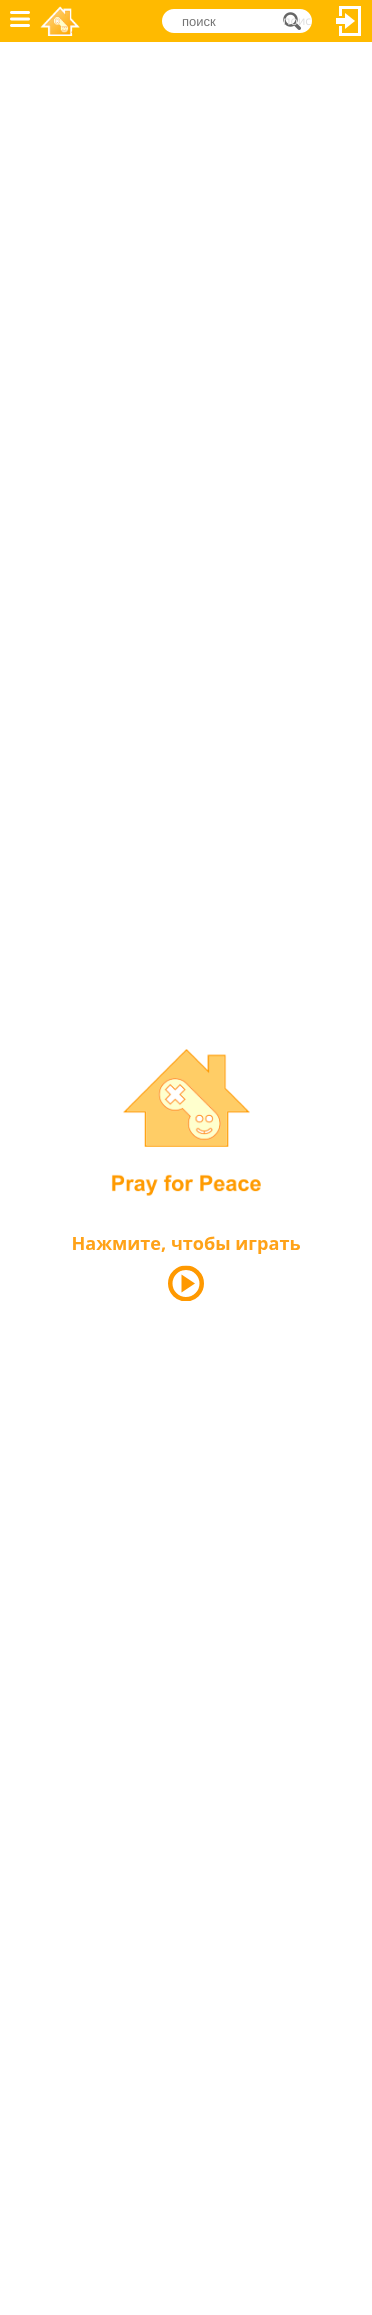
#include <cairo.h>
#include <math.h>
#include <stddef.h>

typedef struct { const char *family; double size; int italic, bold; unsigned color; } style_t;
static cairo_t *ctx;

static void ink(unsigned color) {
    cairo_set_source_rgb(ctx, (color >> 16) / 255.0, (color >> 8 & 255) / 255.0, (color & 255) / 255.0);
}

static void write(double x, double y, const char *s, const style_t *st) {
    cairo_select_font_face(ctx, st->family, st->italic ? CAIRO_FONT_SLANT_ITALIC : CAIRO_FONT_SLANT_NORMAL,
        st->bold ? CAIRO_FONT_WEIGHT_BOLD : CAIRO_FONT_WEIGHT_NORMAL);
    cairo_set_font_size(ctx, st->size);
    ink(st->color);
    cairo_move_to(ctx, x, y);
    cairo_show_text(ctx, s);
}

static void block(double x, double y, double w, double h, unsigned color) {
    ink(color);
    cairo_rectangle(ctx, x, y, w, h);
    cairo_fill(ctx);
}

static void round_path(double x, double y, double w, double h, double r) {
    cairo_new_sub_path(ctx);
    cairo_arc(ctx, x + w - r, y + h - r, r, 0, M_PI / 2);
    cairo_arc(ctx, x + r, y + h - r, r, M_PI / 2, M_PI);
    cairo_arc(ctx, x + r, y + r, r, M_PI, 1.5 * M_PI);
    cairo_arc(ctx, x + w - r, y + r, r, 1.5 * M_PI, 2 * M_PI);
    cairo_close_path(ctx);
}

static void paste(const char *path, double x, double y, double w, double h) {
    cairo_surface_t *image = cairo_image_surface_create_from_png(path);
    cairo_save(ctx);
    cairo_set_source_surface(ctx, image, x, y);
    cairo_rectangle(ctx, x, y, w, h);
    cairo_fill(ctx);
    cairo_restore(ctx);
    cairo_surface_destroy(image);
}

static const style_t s1 = {"Liberation Sans", 13, 0, 0, 0x757575};
static const style_t s2 = {"Open Sans", 12, 0, 0, 0xdddddd};

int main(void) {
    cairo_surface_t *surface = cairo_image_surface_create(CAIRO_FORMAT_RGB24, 372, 2315);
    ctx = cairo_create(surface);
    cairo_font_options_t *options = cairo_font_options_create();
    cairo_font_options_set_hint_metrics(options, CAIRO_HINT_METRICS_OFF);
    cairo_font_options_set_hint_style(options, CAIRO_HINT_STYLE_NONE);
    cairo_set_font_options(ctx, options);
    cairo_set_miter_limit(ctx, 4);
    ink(0xffffff);
    cairo_paint(ctx);
    block(0, 0, 372, 42, 0xffba00);
    paste("pic1.png", 10, 11, 20, 16);
    paste("pic2.png", 40, 6, 40, 30);
    ink(0xffffff);
    round_path(162, 9, 150, 24, 12);
    cairo_fill(ctx);
    write(182, 26, "поиск", &s1);
    paste("pic3.png", 283, 12, 18, 18);
    write(283, 25, "поис", &s2);
    cairo_new_path(ctx);
    cairo_move_to(ctx, 340.5, 16);
    cairo_line_to(ctx, 340.5, 7.5);
    cairo_line_to(ctx, 359.5, 7.5);
    cairo_line_to(ctx, 359.5, 34.5);
    cairo_line_to(ctx, 340.5, 34.5);
    cairo_line_to(ctx, 340.5, 26);
    ink(0xffffff);
    cairo_set_line_width(ctx, 3);
    cairo_stroke(ctx);
    cairo_new_path(ctx);
    cairo_move_to(ctx, 336, 18);
    cairo_line_to(ctx, 345, 18);
    cairo_line_to(ctx, 345, 13);
    cairo_line_to(ctx, 355, 21);
    cairo_line_to(ctx, 345, 29);
    cairo_line_to(ctx, 345, 24);
    cairo_line_to(ctx, 336, 24);
    cairo_close_path(ctx);
    cairo_fill(ctx);
    paste("pic4.png", 73, 1049, 227, 252);
    cairo_surface_write_to_png(surface, "screenshot.png");
    cairo_font_options_destroy(options);
    cairo_destroy(ctx);
    cairo_surface_destroy(surface);
    return 0;
}
